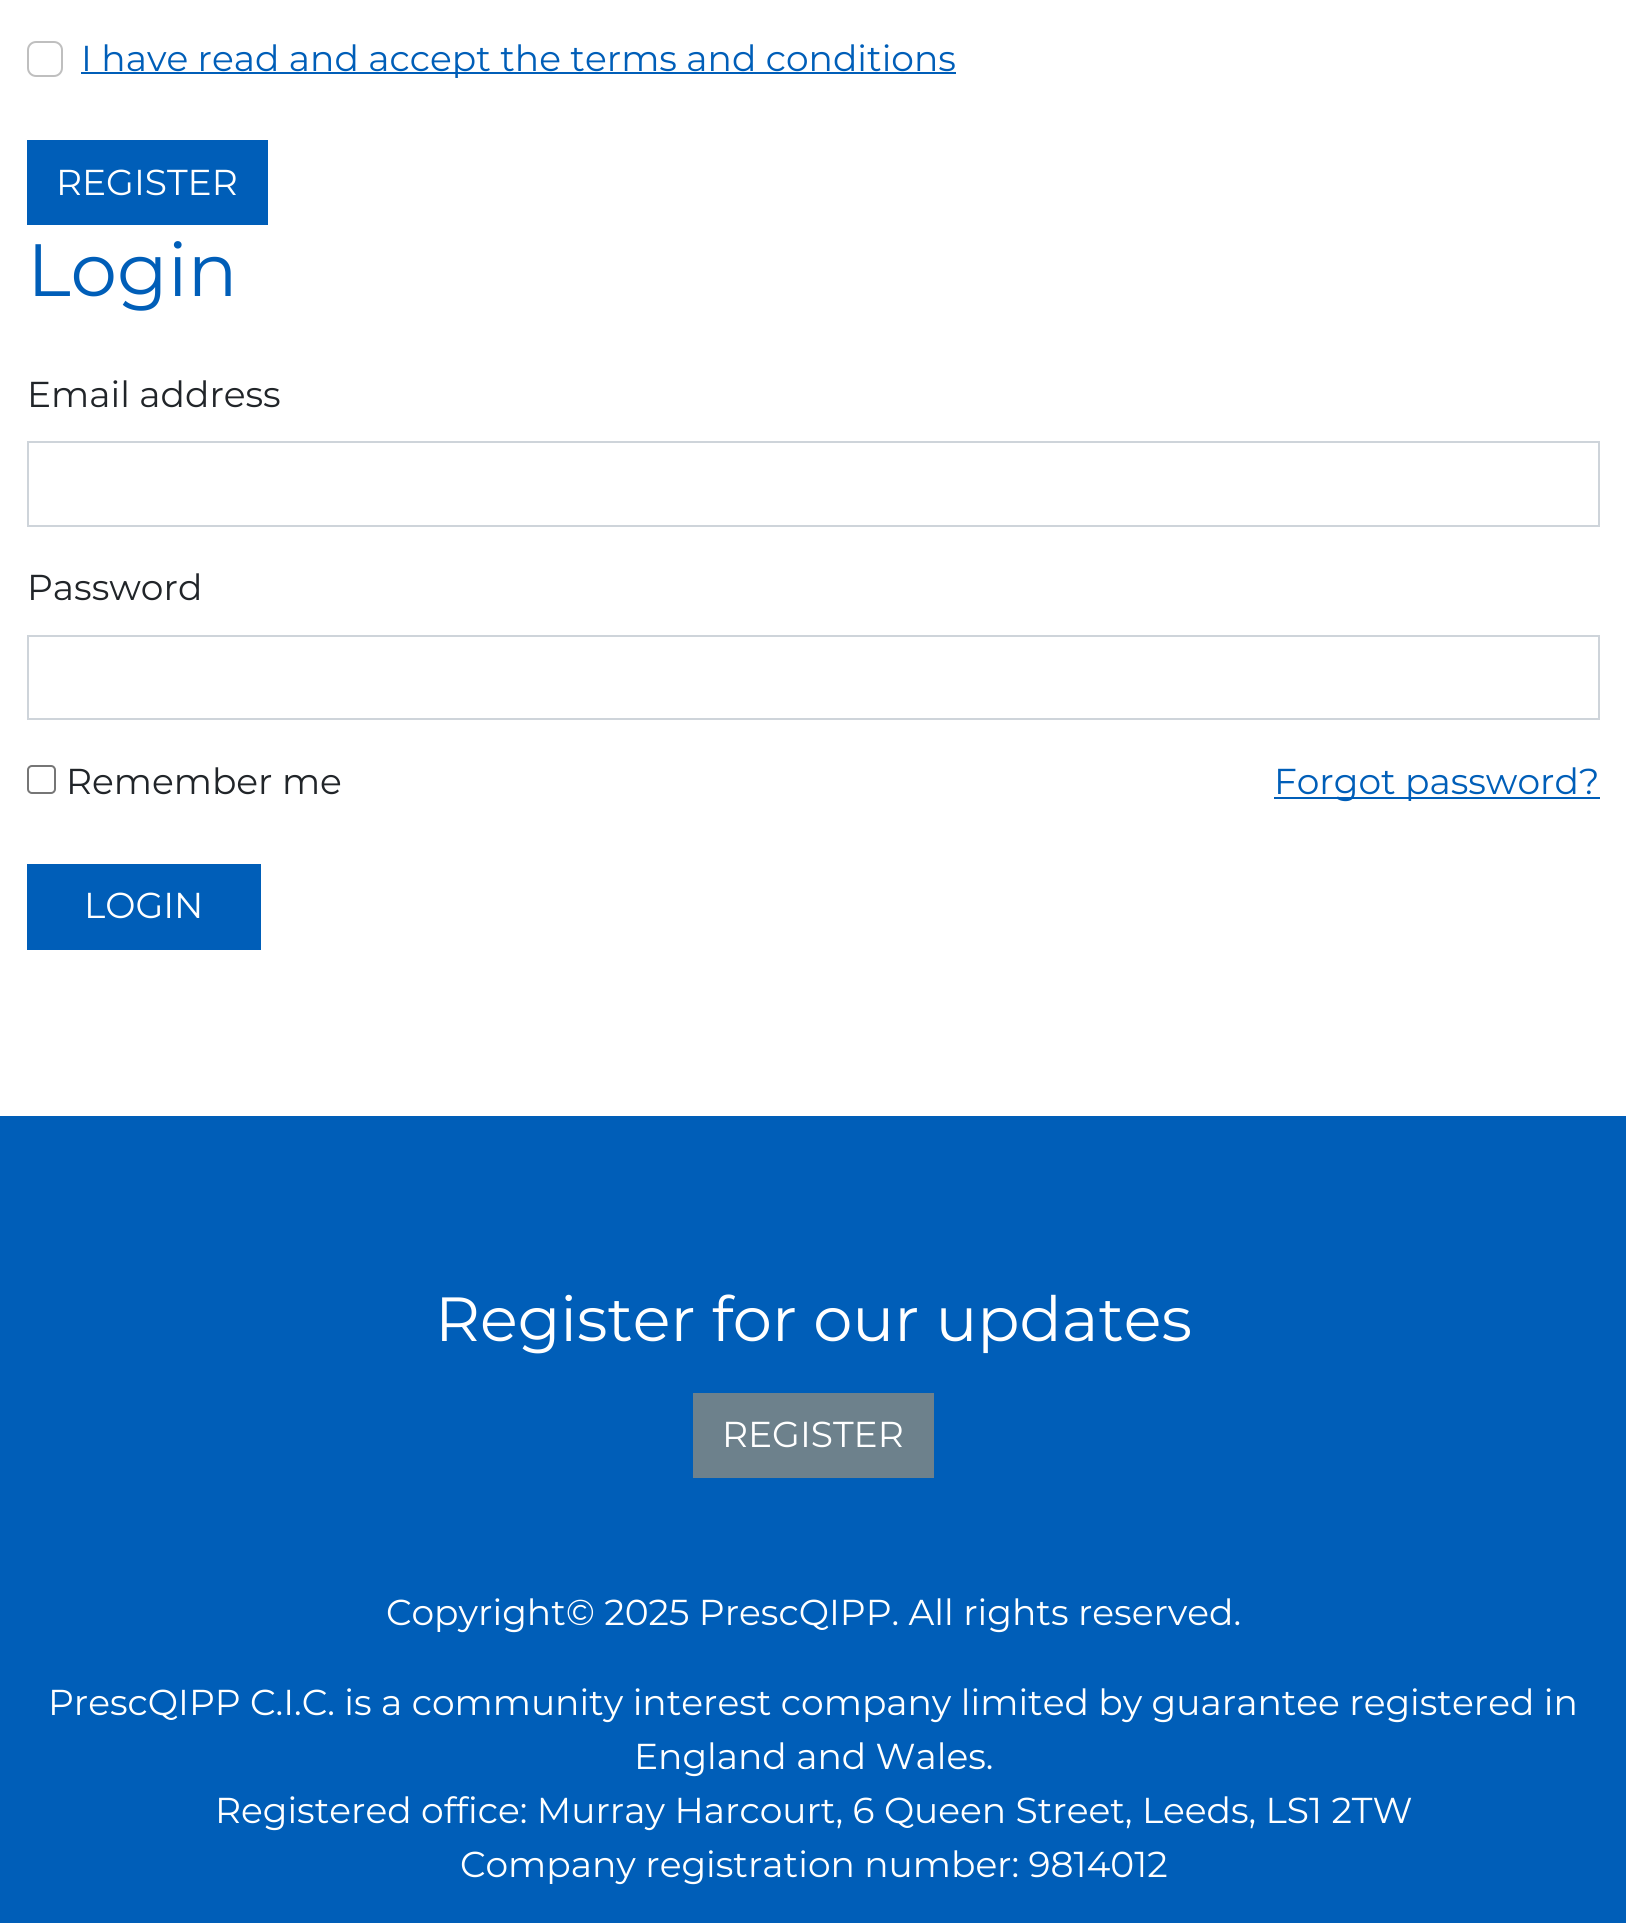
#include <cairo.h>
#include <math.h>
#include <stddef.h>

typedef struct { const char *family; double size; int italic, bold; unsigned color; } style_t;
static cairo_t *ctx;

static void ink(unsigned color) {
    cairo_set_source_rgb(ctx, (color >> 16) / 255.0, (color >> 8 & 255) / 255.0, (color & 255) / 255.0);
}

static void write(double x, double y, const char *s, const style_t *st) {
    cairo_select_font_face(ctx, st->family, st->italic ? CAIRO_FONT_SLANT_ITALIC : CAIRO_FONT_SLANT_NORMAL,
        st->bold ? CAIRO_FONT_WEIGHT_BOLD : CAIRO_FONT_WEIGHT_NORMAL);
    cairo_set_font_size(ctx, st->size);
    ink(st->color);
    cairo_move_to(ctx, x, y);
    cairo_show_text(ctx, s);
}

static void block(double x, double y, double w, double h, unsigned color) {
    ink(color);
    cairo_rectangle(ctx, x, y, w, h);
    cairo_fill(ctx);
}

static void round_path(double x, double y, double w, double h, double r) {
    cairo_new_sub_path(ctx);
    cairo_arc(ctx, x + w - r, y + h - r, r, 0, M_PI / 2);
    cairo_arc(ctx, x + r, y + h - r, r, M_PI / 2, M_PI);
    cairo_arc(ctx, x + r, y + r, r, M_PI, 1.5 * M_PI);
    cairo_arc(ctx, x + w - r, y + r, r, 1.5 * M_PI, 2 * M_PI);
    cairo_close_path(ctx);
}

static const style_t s1 = {"Montserrat", 36, 0, 0, 0x005eb8};
static const style_t s2 = {"Montserrat", 36, 0, 0, 0xffffff};
static const style_t s3 = {"Montserrat", 74, 0, 0, 0x005eb8};
static const style_t s4 = {"Montserrat", 36, 0, 0, 0x212529};
static const style_t s5 = {"Montserrat", 62.3, 0, 0, 0xffffff};

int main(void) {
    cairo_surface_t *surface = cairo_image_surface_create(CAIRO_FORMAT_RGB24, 1626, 1923);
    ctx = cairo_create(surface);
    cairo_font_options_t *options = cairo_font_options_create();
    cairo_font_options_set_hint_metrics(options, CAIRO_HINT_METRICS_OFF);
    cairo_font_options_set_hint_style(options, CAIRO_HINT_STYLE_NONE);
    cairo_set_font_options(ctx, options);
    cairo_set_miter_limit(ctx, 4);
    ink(0xffffff);
    cairo_paint(ctx);
    round_path(28, 42, 34, 34, 8);
    ink(0xbfbfbf);
    cairo_stroke(ctx);
    block(81, 72, 875, 2, 0x005eb8);
    write(81, 71, "I have read and accept the terms and conditions", &s1);
    block(27, 140, 241, 85, 0x005eb8);
    write(56, 195, "REGISTER", &s2);
    write(27, 296, "Login", &s3);
    write(27, 407, "Email address", &s4);
    cairo_rectangle(ctx, 28, 442, 1571, 84);
    ink(0xced4da);
    cairo_stroke(ctx);
    write(27, 600, "Password", &s4);
    cairo_rectangle(ctx, 28, 636, 1571, 83);
    ink(0xced4da);
    cairo_stroke(ctx);
    round_path(28, 766, 27, 27, 4);
    ink(0x767676);
    cairo_stroke(ctx);
    write(66, 794, "Remember me", &s4);
    block(1274, 797, 326, 2, 0x005eb8);
    write(1274, 794, "Forgot password?", &s1);
    block(27, 864, 234, 86, 0x005eb8);
    write(84, 918, "LOGIN", &s2);
    block(0, 1116, 1626, 807, 0x005eb8);
    write(435, 1341, "Register for our updates", &s5);
    block(693, 1393, 241, 85, 0x6d818c);
    write(722, 1447, "REGISTER", &s2);
    write(386, 1625, "Copyright© 2025 PrescQIPP. All rights reserved.", &s2);
    write(48, 1715, "PrescQIPP C.I.C. is a community interest company limited by guarantee registered in", &s2);
    write(634, 1769, "England and Wales.", &s2);
    write(215, 1823, "Registered office: Murray Harcourt, 6 Queen Street, Leeds, LS1 2TW", &s2);
    write(460, 1877, "Company registration number: 9814012", &s2);
    cairo_surface_write_to_png(surface, "screenshot.png");
    cairo_font_options_destroy(options);
    cairo_destroy(ctx);
    cairo_surface_destroy(surface);
    return 0;
}
